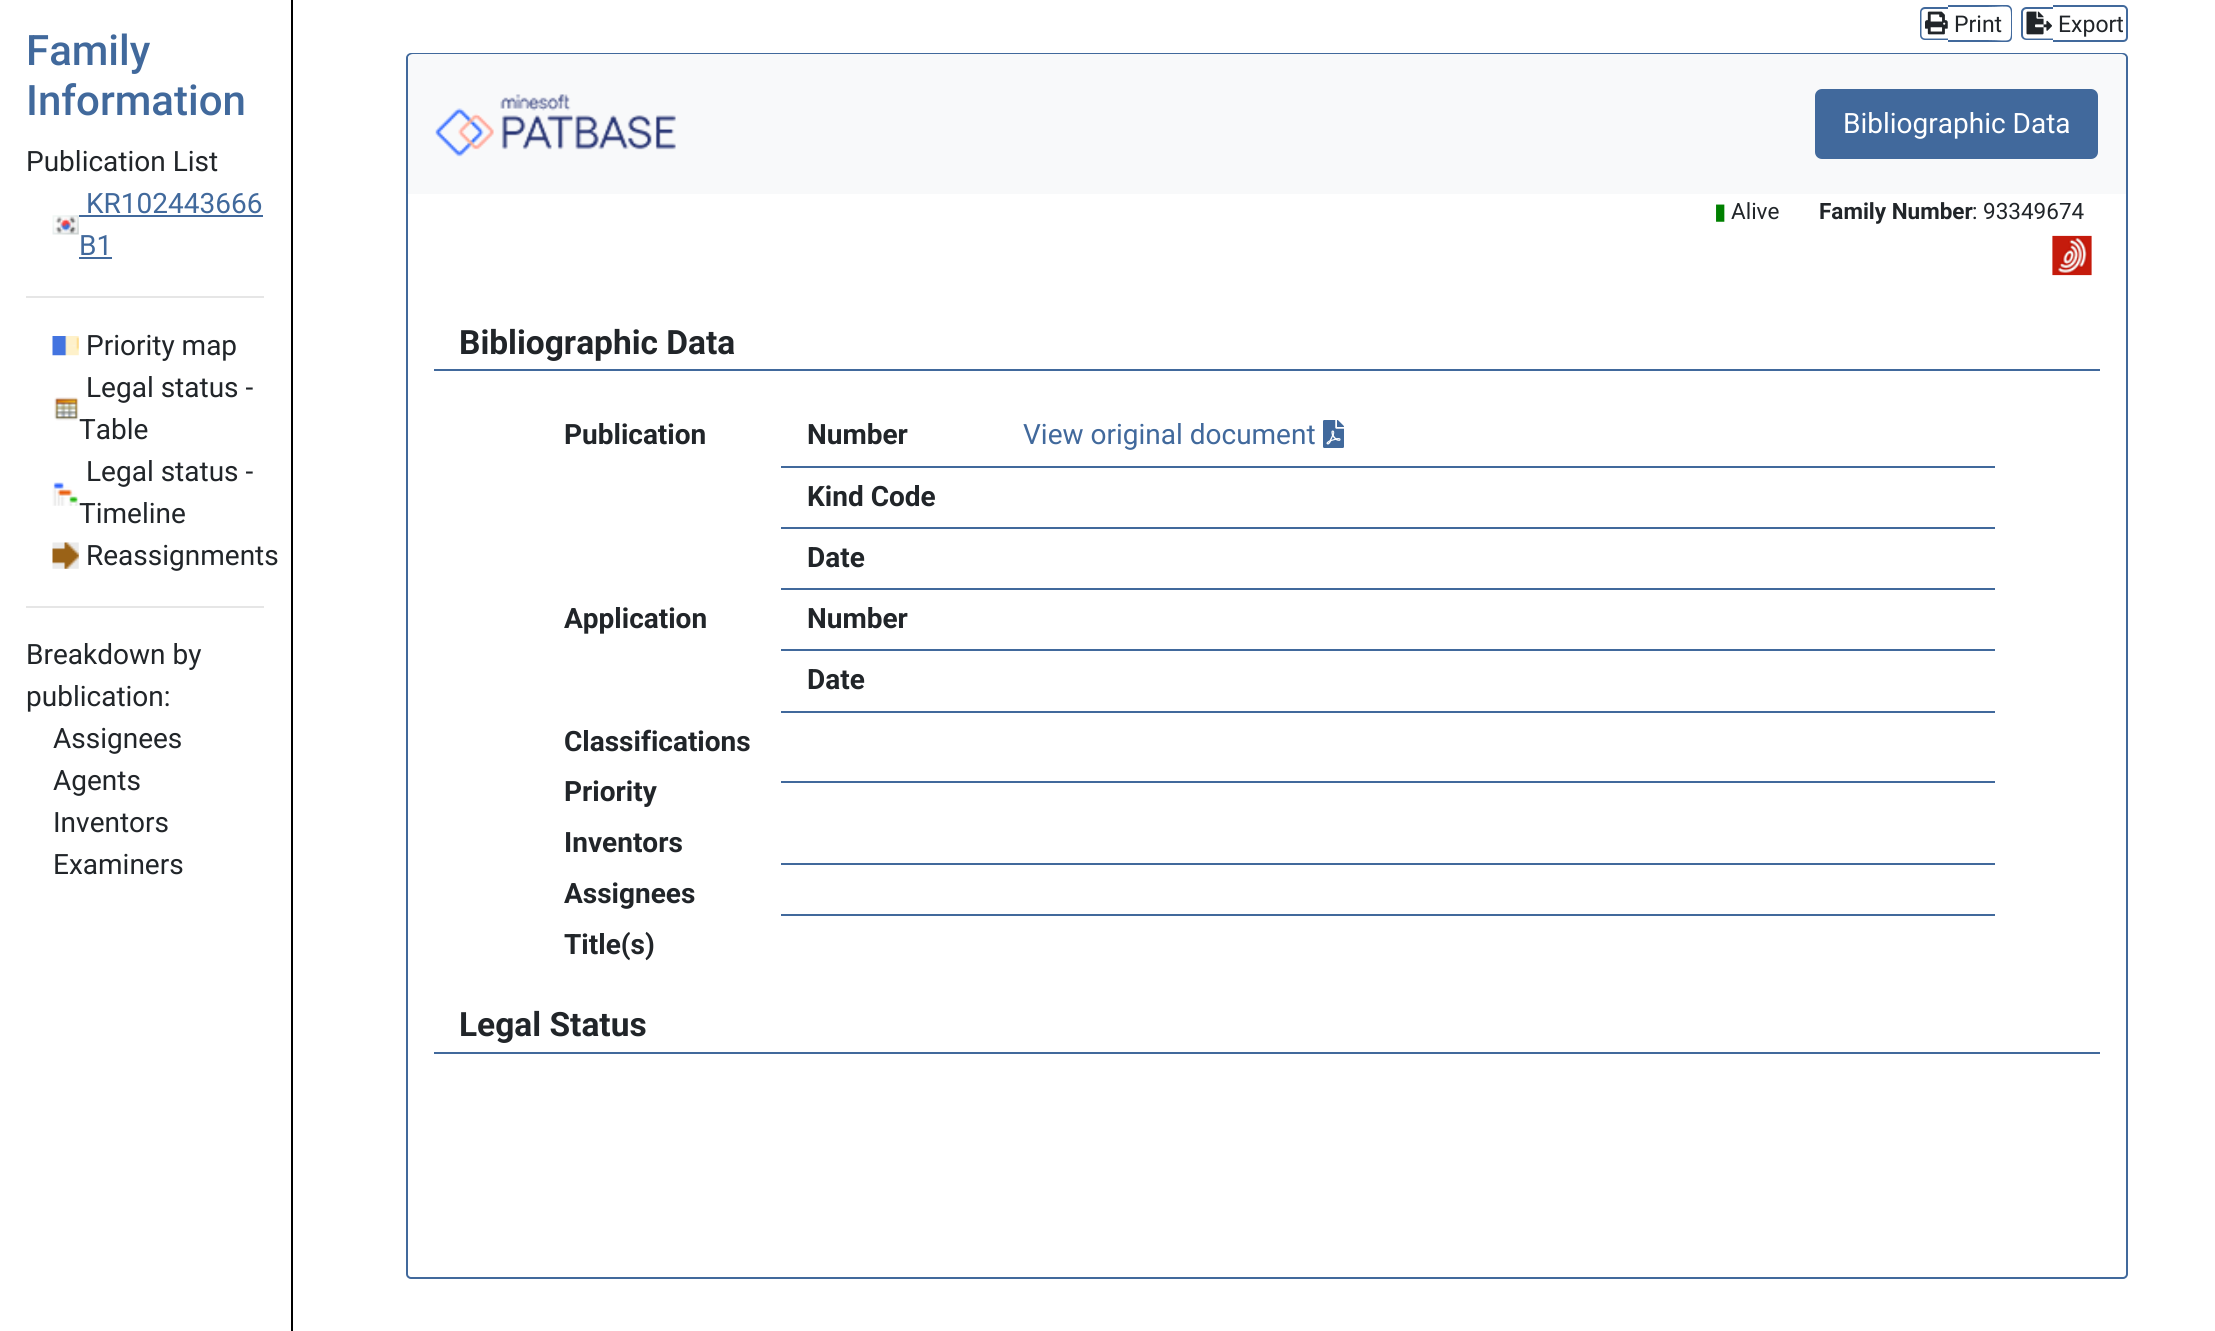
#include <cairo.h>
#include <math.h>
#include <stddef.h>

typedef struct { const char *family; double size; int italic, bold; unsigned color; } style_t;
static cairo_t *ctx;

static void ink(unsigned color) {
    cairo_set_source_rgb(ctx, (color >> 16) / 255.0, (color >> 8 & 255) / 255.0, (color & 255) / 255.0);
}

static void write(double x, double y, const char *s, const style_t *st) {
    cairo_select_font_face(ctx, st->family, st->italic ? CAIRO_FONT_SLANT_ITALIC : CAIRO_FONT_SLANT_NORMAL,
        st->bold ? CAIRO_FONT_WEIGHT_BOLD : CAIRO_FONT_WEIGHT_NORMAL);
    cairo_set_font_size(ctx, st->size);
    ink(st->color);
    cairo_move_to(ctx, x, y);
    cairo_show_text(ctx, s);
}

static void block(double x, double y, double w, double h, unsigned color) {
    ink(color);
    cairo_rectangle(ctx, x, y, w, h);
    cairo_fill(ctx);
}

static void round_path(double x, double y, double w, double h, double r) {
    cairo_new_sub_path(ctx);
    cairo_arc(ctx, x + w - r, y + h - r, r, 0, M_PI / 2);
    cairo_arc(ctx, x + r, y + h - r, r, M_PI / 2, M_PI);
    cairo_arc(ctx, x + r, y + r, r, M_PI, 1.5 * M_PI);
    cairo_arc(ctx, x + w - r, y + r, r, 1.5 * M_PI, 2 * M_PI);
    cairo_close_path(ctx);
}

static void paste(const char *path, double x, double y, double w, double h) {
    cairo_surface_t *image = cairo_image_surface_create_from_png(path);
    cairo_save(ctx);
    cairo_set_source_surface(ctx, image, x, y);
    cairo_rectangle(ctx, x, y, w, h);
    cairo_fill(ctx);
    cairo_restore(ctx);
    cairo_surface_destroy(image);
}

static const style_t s1 = {"Roboto Medium", 42, 0, 0, 0x41699c};
static const style_t s2 = {"Roboto", 28, 0, 0, 0x212529};
static const style_t s3 = {"Roboto", 28, 0, 0, 0x41699c};
static const style_t s4 = {"Roboto", 23, 0, 0, 0x212529};
static const style_t s5 = {"Roboto", 28, 0, 0, 0xffffff};
static const style_t s6 = {"DejaVu Sans", 22.5, 0, 0, 0x008000};
static const style_t s7 = {"Roboto", 22.5, 0, 0, 0x212529};
static const style_t s8 = {"Roboto", 22.5, 0, 1, 0x212529};
static const style_t s9 = {"Roboto", 33.5, 0, 1, 0x212529};
static const style_t s10 = {"Roboto", 28, 0, 1, 0x212529};

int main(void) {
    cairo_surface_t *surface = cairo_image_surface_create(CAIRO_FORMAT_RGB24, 2215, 1331);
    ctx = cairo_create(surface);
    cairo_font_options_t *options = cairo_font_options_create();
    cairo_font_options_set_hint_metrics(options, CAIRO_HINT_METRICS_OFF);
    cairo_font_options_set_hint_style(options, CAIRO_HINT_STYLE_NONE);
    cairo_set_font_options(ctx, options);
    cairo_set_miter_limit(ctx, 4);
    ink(0xffffff);
    cairo_paint(ctx);
    block(291, 0, 2, 1331, 0x000000);
    write(26, 65, "Family", &s1);
    write(26, 115, "Information", &s1);
    write(26, 171, "Publication List", &s2);
    write(86, 213, "KR102443666", &s3);
    block(79, 215, 184, 2, 0x41699c);
    paste("pic1.png", 52, 215, 27, 20);
    write(79, 255, "B1", &s3);
    block(79, 257, 33, 2, 0x41699c);
    block(26, 296, 238, 2, 0xe6e6e6);
    paste("pic2.png", 52, 336, 27, 20);
    write(86, 355, "Priority map", &s2);
    write(86, 397, "Legal status -", &s2);
    paste("pic3.png", 54, 397, 25, 24);
    write(79, 439, "Table", &s2);
    write(86, 481, "Legal status -", &s2);
    paste("pic4.png", 52, 482, 27, 24);
    write(79, 523, "Timeline", &s2);
    paste("pic5.png", 52, 542, 27, 27);
    write(86, 565, "Reassignments", &s2);
    block(26, 606, 238, 2, 0xe6e6e6);
    write(26, 664, "Breakdown by", &s2);
    write(26, 706, "publication:", &s2);
    write(53, 748, "Assignees", &s2);
    write(53, 790, "Agents", &s2);
    write(53, 832, "Inventors", &s2);
    write(53, 874, "Examiners", &s2);
    round_path(407, 54, 1720, 1224, 4);
    ink(0x41699c);
    cairo_stroke(ctx);
    cairo_set_fill_rule(ctx, CAIRO_FILL_RULE_EVEN_ODD);
    cairo_new_path(ctx);
    cairo_move_to(ctx, 1925, 7);
    cairo_line_to(ctx, 1948, 7);
    cairo_line_to(ctx, 1948, 40);
    cairo_line_to(ctx, 1925, 40);
    cairo_curve_to(ctx, 1922, 40, 1920, 38, 1920, 35);
    cairo_line_to(ctx, 1920, 12);
    cairo_curve_to(ctx, 1920, 9.5, 1922, 7, 1925, 7);
    cairo_close_path(ctx);
    cairo_move_to(ctx, 1925, 9);
    cairo_line_to(ctx, 1948, 9);
    cairo_line_to(ctx, 1948, 38.5);
    cairo_line_to(ctx, 1925, 38.5);
    cairo_curve_to(ctx, 1923, 38.5, 1921.5, 37, 1921.5, 35);
    cairo_line_to(ctx, 1921.5, 12);
    cairo_curve_to(ctx, 1921.5, 10.5, 1923, 9, 1925, 9);
    cairo_close_path(ctx);
    cairo_fill(ctx);
    cairo_new_path(ctx);
    cairo_move_to(ctx, 1948, 5);
    cairo_line_to(ctx, 2007, 5);
    cairo_curve_to(ctx, 2010, 5, 2012, 8, 2012, 10);
    cairo_line_to(ctx, 2012, 37);
    cairo_curve_to(ctx, 2012, 40, 2010, 42, 2007, 42);
    cairo_line_to(ctx, 1948, 42);
    cairo_close_path(ctx);
    cairo_move_to(ctx, 1948, 7);
    cairo_line_to(ctx, 1987, 7);
    cairo_curve_to(ctx, 2013, 7, 2011, 2, 2011, 24);
    cairo_curve_to(ctx, 2011, 45, 2013, 40, 1987, 40);
    cairo_line_to(ctx, 1948, 40);
    cairo_close_path(ctx);
    cairo_fill(ctx);
    paste("pic6.png", 1925, 11, 23, 24);
    write(1954, 32, "Print", &s4);
    ink(0x41699c);
    cairo_new_path(ctx);
    cairo_move_to(ctx, 2026.5, 7);
    cairo_line_to(ctx, 2053, 7);
    cairo_line_to(ctx, 2053, 40);
    cairo_line_to(ctx, 2026.5, 40);
    cairo_curve_to(ctx, 2023.5, 40, 2021, 38, 2021, 35);
    cairo_line_to(ctx, 2021, 12);
    cairo_curve_to(ctx, 2021, 9.5, 2023.5, 7, 2026.5, 7);
    cairo_close_path(ctx);
    cairo_move_to(ctx, 2026.5, 9);
    cairo_line_to(ctx, 2053, 9);
    cairo_line_to(ctx, 2053, 38.5);
    cairo_line_to(ctx, 2026.5, 38.5);
    cairo_curve_to(ctx, 2024.5, 38.5, 2023, 37, 2023, 35);
    cairo_line_to(ctx, 2023, 12);
    cairo_curve_to(ctx, 2023, 10.5, 2024.5, 9, 2026.5, 9);
    cairo_close_path(ctx);
    cairo_fill(ctx);
    cairo_new_path(ctx);
    cairo_move_to(ctx, 2053, 5);
    cairo_line_to(ctx, 2123, 5);
    cairo_curve_to(ctx, 2126, 5, 2128, 8, 2128, 10);
    cairo_line_to(ctx, 2128, 37);
    cairo_curve_to(ctx, 2128, 40, 2126, 42, 2123, 42);
    cairo_line_to(ctx, 2053, 42);
    cairo_close_path(ctx);
    cairo_move_to(ctx, 2053, 7);
    cairo_line_to(ctx, 2123, 7);
    cairo_curve_to(ctx, 2125, 7, 2126, 9, 2126, 10);
    cairo_line_to(ctx, 2126, 37);
    cairo_curve_to(ctx, 2126, 39, 2125, 40, 2123, 40);
    cairo_line_to(ctx, 2053, 40);
    cairo_close_path(ctx);
    cairo_fill(ctx);
    paste("pic7.png", 2026, 11, 26, 24);
    write(2058, 32, "Export", &s4);
    ink(0xf8f9fa);
    cairo_new_path(ctx);
    cairo_move_to(ctx, 413, 54);
    cairo_line_to(ctx, 2121, 54);
    cairo_curve_to(ctx, 2124, 54, 2126, 56, 2126, 59);
    cairo_line_to(ctx, 2126, 194);
    cairo_line_to(ctx, 408, 194);
    cairo_line_to(ctx, 408, 59);
    cairo_curve_to(ctx, 408, 56, 410, 54, 413, 54);
    cairo_close_path(ctx);
    cairo_fill(ctx);
    paste("pic8.png", 435, 94, 241, 63);
    ink(0x41699c);
    round_path(1815, 89, 283, 70, 7);
    cairo_fill(ctx);
    write(1843, 133, "Bibliographic Data", &s5);
    write(1714, 219, "▮", &s6);
    write(1731, 219, "Alive", &s7);
    write(1819, 219, "Family Number", &s8);
    write(1972, 219, ": 93349674", &s7);
    paste("pic9.png", 2052, 235, 40, 41);
    block(434, 369, 1666, 2, 0x41699c);
    write(459, 354, "Bibliographic Data", &s9);
    write(564, 444, "Publication", &s10);
    block(781, 466, 1214, 2, 0x41699c);
    write(807, 444, "Number", &s10);
    write(1023, 444, "View original document", &s3);
    paste("pic10.png", 1323, 420, 21, 28);
    block(781, 527, 1214, 2, 0x41699c);
    write(807, 506, "Kind Code", &s10);
    block(781, 588, 1214, 2, 0x41699c);
    write(807, 567, "Date", &s10);
    write(564, 628, "Application", &s10);
    block(781, 649, 1214, 2, 0x41699c);
    write(807, 628, "Number", &s10);
    block(781, 711, 1214, 2, 0x41699c);
    write(807, 689, "Date", &s10);
    write(564, 751, "Classifications", &s10);
    write(564, 801, "Priority", &s10);
    block(781, 781, 1214, 2, 0x41699c);
    write(564, 852, "Inventors", &s10);
    block(781, 863, 1214, 2, 0x41699c);
    write(564, 903, "Assignees", &s10);
    block(781, 914, 1214, 2, 0x41699c);
    write(564, 954, "Title(s)", &s10);
    block(434, 1052, 1666, 2, 0x41699c);
    write(459, 1036, "Legal Status", &s9);
    cairo_surface_write_to_png(surface, "screenshot.png");
    cairo_font_options_destroy(options);
    cairo_destroy(ctx);
    cairo_surface_destroy(surface);
    return 0;
}
